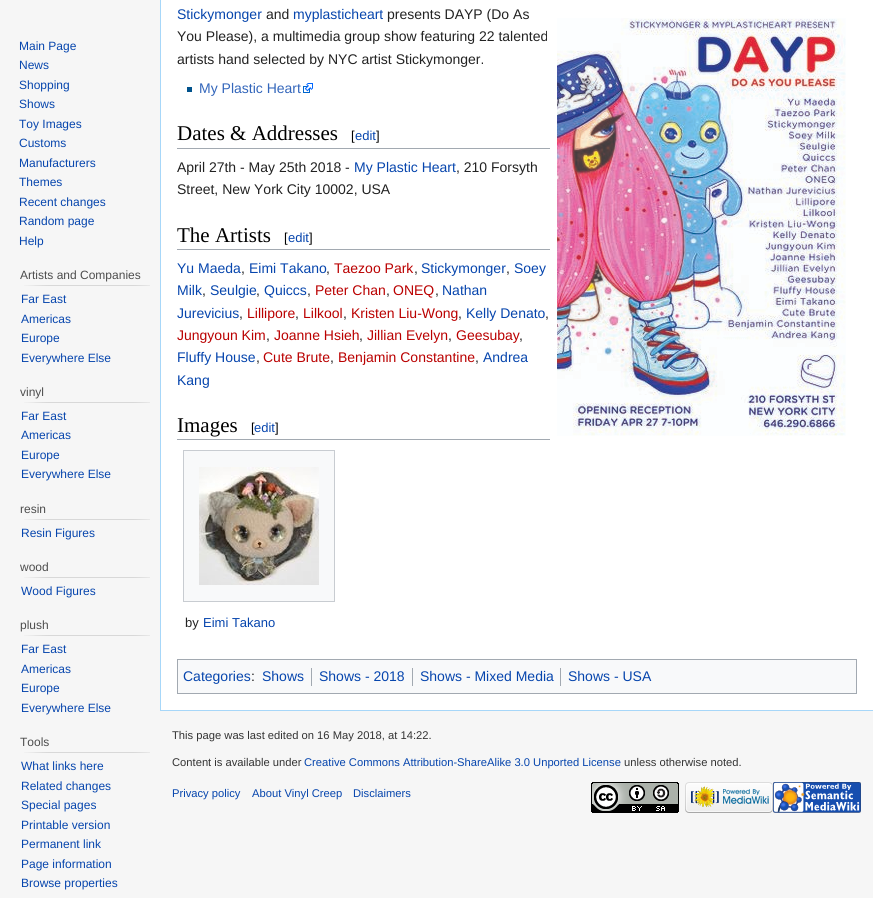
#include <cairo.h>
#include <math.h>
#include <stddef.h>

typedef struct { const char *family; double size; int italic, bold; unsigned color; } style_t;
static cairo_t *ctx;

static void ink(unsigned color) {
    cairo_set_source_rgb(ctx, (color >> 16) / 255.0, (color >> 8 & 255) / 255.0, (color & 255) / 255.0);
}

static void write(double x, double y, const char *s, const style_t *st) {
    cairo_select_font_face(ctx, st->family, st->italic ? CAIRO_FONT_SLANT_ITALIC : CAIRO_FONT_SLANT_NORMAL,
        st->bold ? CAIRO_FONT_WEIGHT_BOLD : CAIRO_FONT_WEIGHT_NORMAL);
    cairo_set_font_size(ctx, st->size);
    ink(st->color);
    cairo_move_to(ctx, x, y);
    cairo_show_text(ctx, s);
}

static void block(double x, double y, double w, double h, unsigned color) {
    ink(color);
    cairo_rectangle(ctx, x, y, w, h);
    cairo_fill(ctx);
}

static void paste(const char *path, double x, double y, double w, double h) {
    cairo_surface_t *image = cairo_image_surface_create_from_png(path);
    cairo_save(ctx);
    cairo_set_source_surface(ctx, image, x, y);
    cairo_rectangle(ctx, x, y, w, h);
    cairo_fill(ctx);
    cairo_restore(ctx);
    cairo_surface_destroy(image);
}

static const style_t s1 = {"Liberation Sans", 12, 0, 0, 0x0645ad};
static const style_t s2 = {"Liberation Sans", 12, 0, 0, 0x4d4d4d};
static const style_t s3 = {"Liberation Sans", 14, 0, 0, 0x0645ad};
static const style_t s4 = {"Liberation Sans", 14, 0, 0, 0x222222};
static const style_t s5 = {"Liberation Sans", 14, 0, 0, 0x3366bb};
static const style_t s6 = {"Liberation Serif", 21, 0, 0, 0x000000};
static const style_t s7 = {"Liberation Sans", 13, 0, 0, 0x000000};
static const style_t s8 = {"Liberation Sans", 13, 0, 0, 0x0645ad};
static const style_t s9 = {"Liberation Sans", 14, 0, 0, 0xba0000};
static const style_t s10 = {"Liberation Sans", 13, 0, 0, 0x222222};
static const style_t s11 = {"Liberation Sans", 11.2, 0, 0, 0x333333};
static const style_t s12 = {"Liberation Sans", 11.2, 0, 0, 0x0645ad};

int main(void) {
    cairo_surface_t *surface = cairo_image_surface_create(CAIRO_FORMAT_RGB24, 873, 898);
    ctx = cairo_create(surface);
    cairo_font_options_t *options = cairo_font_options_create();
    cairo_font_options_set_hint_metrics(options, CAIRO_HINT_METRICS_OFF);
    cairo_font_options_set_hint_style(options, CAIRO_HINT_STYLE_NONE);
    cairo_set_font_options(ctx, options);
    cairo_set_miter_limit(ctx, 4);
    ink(0xf6f6f6);
    cairo_paint(ctx);
    write(19, 50, "Main Page", &s1);
    write(19, 69, "News", &s1);
    write(19, 89, "Shopping", &s1);
    write(19, 108, "Shows", &s1);
    write(19, 128, "Toy Images", &s1);
    write(19, 147, "Customs", &s1);
    write(19, 167, "Manufacturers", &s1);
    write(19, 186, "Themes", &s1);
    write(19, 206, "Recent changes", &s1);
    write(19, 225, "Random page", &s1);
    write(19, 245, "Help", &s1);
    write(20, 279, "Artists and Companies", &s2);
    paste("pic1.png", 24, 285, 126, 1);
    write(21, 303, "Far East", &s1);
    write(21, 323, "Americas", &s1);
    write(21, 342, "Europe", &s1);
    write(21, 362, "Everywhere Else", &s1);
    write(20, 396, "vinyl", &s2);
    paste("pic1.png", 24, 402, 126, 1);
    write(21, 420, "Far East", &s1);
    write(21, 439, "Americas", &s1);
    write(21, 459, "Europe", &s1);
    write(21, 478, "Everywhere Else", &s1);
    write(20, 513, "resin", &s2);
    paste("pic1.png", 24, 519, 126, 1);
    write(21, 537, "Resin Figures", &s1);
    write(20, 571, "wood", &s2);
    paste("pic1.png", 24, 577, 126, 1);
    write(21, 595, "Wood Figures", &s1);
    write(20, 629, "plush", &s2);
    paste("pic1.png", 24, 635, 126, 1);
    write(21, 653, "Far East", &s1);
    write(21, 673, "Americas", &s1);
    write(21, 692, "Europe", &s1);
    write(21, 712, "Everywhere Else", &s1);
    write(20, 746, "Tools", &s2);
    paste("pic1.png", 24, 752, 126, 1);
    write(21, 770, "What links here", &s1);
    write(21, 790, "Related changes", &s1);
    write(21, 809, "Special pages", &s1);
    write(21, 829, "Printable version", &s1);
    write(21, 848, "Permanent link", &s1);
    write(21, 868, "Page information", &s1);
    write(21, 887, "Browse properties", &s1);
    block(161, 0, 712, 710, 0xffffff);
    block(160, 710, 713, 1, 0xa7d7f9);
    block(160, 0, 1, 711, 0xa7d7f9);
    write(177, 19, "Stickymonger", &s3);
    write(266, 19, "and", &s4);
    write(293, 19, "myplasticheart", &s3);
    write(387, 19, "presents DAYP (Do As", &s4);
    write(177, 41, "You Please), a multimedia group show featuring 22 talented", &s4);
    write(177, 64, "artists hand selected by NYC artist Stickymonger.", &s4);
    paste("pic2.png", 557, 18, 289, 418);
    block(187, 87, 5, 5, 0x00528c);
    write(199, 93, "My Plastic Heart", &s5);
    paste("pic3.png", 303, 83, 10, 10);
    block(177, 148, 373, 1, 0xa2a9b1);
    write(177, 140, "Dates & Addresses", &s6);
    write(351, 140, "[", &s7);
    write(355, 140, "edit", &s8);
    write(376, 140, "]", &s7);
    write(177, 172, "April 27th - May 25th 2018 -", &s4);
    write(354, 172, "My Plastic Heart", &s3);
    write(456, 172, ", 210 Forsyth", &s4);
    write(177, 194, "Street, New York City 10002, USA", &s4);
    block(177, 249, 373, 1, 0xa2a9b1);
    write(177, 242, "The Artists", &s6);
    write(284, 242, "[", &s7);
    write(288, 242, "edit", &s8);
    write(309, 242, "]", &s7);
    write(177, 273, "Yu Maeda", &s3);
    write(241, 273, ",", &s4);
    write(249, 273, "Eimi Takano", &s3);
    write(326, 273, ",", &s4);
    write(334, 273, "Taezoo Park", &s9);
    write(414, 273, ",", &s4);
    write(421, 273, "Stickymonger", &s3);
    write(506, 273, ",", &s4);
    write(514, 273, "Soey", &s3);
    write(177, 295, "Milk", &s3);
    write(202, 295, ",", &s4);
    write(210, 295, "Seulgie", &s3);
    write(256, 295, ",", &s4);
    write(264, 295, "Quiccs", &s3);
    write(307, 295, ",", &s4);
    write(315, 295, "Peter Chan", &s9);
    write(386, 295, ",", &s4);
    write(393, 295, "ONEQ", &s9);
    write(435, 295, ",", &s4);
    write(442, 295, "Nathan", &s3);
    write(177, 318, "Jurevicius", &s3);
    write(239, 318, ",", &s4);
    write(247, 318, "Lillipore", &s9);
    write(295, 318, ",", &s4);
    write(303, 318, "Lilkool", &s9);
    write(343, 318, ",", &s4);
    write(351, 318, "Kristen Liu-Wong", &s9);
    write(458, 318, ",", &s4);
    write(466, 318, "Kelly Denato", &s3);
    write(545, 318, ",", &s4);
    write(177, 340, "Jungyoun Kim", &s9);
    write(266, 340, ",", &s4);
    write(274, 340, "Joanne Hsieh", &s9);
    write(359, 340, ",", &s4);
    write(367, 340, "Jillian Evelyn", &s9);
    write(448, 340, ",", &s4);
    write(456, 340, "Geesubay", &s9);
    write(519, 340, ",", &s4);
    write(177, 362, "Fluffy House", &s3);
    write(256, 362, ",", &s4);
    write(263, 362, "Cute Brute", &s9);
    write(330, 362, ",", &s4);
    write(338, 362, "Benjamin Constantine", &s9);
    write(475, 362, ",", &s4);
    write(483, 362, "Andrea", &s3);
    write(177, 385, "Kang", &s3);
    block(177, 439, 373, 1, 0xa2a9b1);
    write(177, 432, "Images", &s6);
    write(251, 432, "[", &s7);
    write(254, 432, "edit", &s8);
    write(275, 432, "]", &s7);
    ink(0xf8f9fa);
    cairo_rectangle(ctx, 183.5, 450.5, 151, 151);
    cairo_fill_preserve(ctx);
    ink(0xc8ccd1);
    cairo_set_line_width(ctx, 1);
    cairo_stroke(ctx);
    paste("pic4.png", 199, 467, 120, 118);
    write(185, 627, "by", &s10);
    write(203, 627, "Eimi Takano", &s8);
    ink(0xf8f9fa);
    cairo_rectangle(ctx, 177.5, 659.5, 679, 34);
    cairo_fill_preserve(ctx);
    ink(0xa2a9b1);
    cairo_stroke(ctx);
    write(183, 681, "Categories", &s3);
    write(251, 681, ":", &s4);
    write(262, 681, "Shows", &s3);
    block(311, 668, 1, 18, 0xa2a9b1);
    write(319, 681, "Shows - 2018", &s3);
    block(412, 668, 1, 18, 0xa2a9b1);
    write(420, 681, "Shows - Mixed Media", &s3);
    block(560, 668, 1, 18, 0xa2a9b1);
    write(568, 681, "Shows - USA", &s3);
    write(172, 739, "This page was last edited on 16 May 2018, at 14:22.", &s11);
    write(172, 766, "Content is available under", &s11);
    write(304, 766, "Creative Commons Attribution-ShareAlike 3.0 Unported License", &s12);
    write(624, 766, "unless otherwise noted.", &s11);
    write(172, 797, "Privacy policy", &s12);
    write(252, 797, "About Vinyl Creep", &s12);
    write(353, 797, "Disclaimers", &s12);
    paste("pic5.png", 591, 782, 88, 31);
    paste("pic6.png", 685, 782, 88, 31);
    paste("pic7.png", 773, 782, 88, 31);
    cairo_surface_write_to_png(surface, "screenshot.png");
    cairo_font_options_destroy(options);
    cairo_destroy(ctx);
    cairo_surface_destroy(surface);
    return 0;
}
